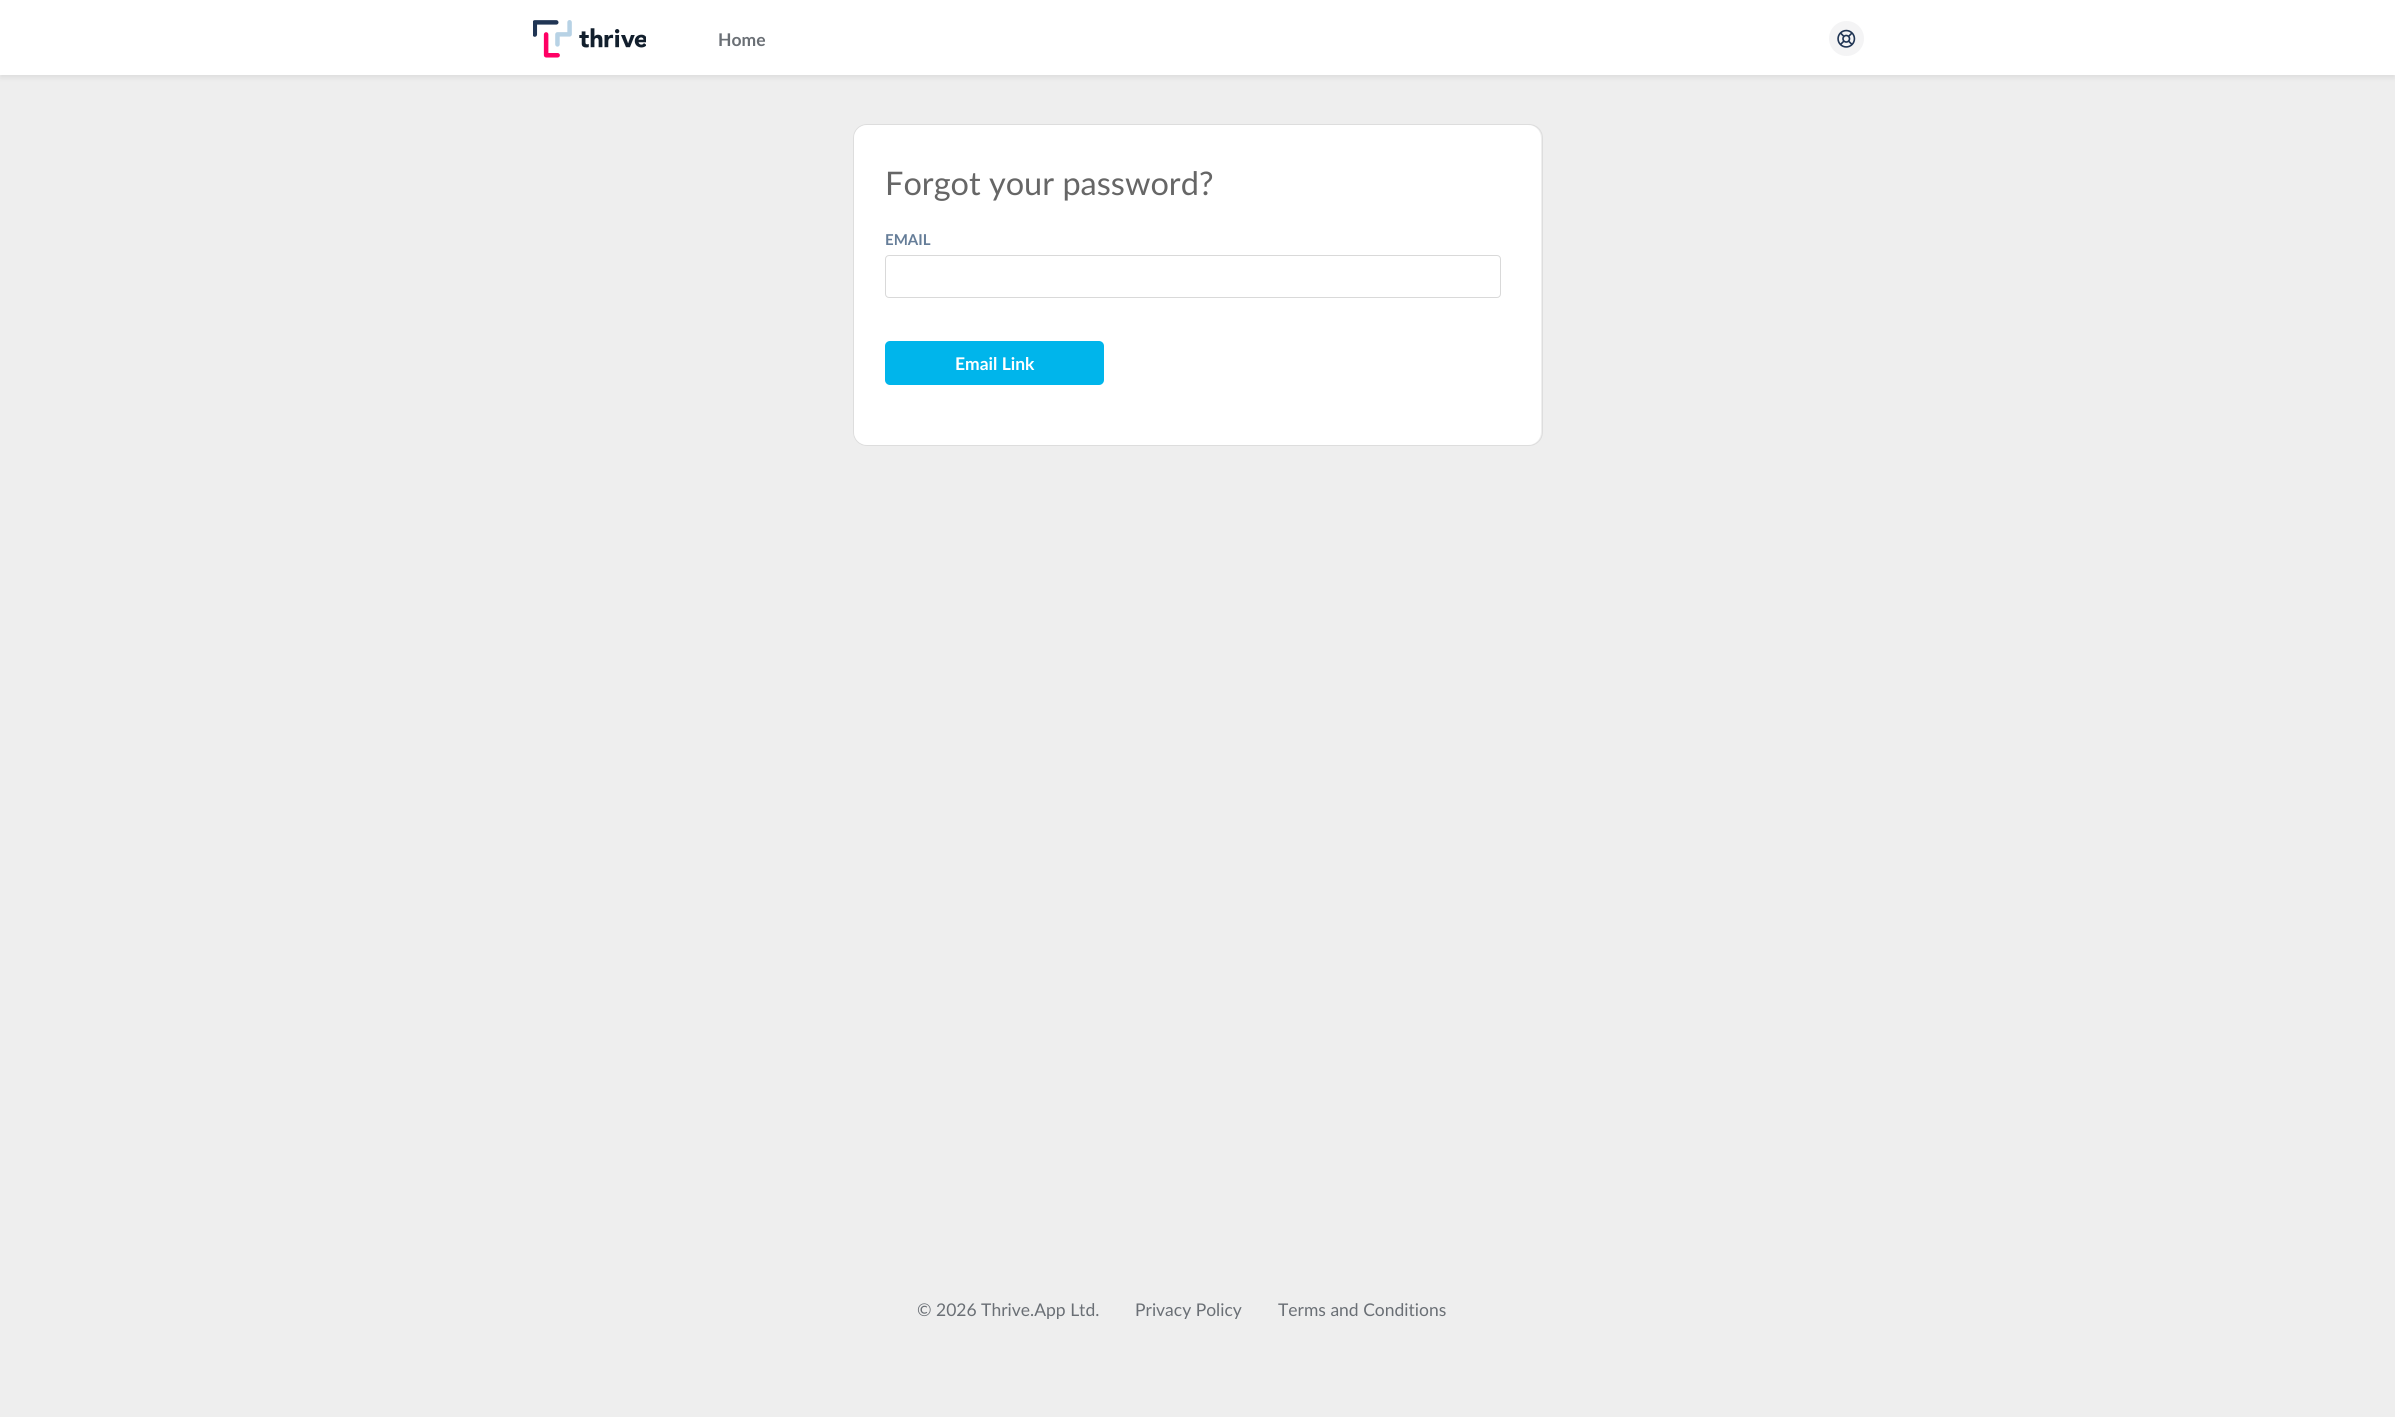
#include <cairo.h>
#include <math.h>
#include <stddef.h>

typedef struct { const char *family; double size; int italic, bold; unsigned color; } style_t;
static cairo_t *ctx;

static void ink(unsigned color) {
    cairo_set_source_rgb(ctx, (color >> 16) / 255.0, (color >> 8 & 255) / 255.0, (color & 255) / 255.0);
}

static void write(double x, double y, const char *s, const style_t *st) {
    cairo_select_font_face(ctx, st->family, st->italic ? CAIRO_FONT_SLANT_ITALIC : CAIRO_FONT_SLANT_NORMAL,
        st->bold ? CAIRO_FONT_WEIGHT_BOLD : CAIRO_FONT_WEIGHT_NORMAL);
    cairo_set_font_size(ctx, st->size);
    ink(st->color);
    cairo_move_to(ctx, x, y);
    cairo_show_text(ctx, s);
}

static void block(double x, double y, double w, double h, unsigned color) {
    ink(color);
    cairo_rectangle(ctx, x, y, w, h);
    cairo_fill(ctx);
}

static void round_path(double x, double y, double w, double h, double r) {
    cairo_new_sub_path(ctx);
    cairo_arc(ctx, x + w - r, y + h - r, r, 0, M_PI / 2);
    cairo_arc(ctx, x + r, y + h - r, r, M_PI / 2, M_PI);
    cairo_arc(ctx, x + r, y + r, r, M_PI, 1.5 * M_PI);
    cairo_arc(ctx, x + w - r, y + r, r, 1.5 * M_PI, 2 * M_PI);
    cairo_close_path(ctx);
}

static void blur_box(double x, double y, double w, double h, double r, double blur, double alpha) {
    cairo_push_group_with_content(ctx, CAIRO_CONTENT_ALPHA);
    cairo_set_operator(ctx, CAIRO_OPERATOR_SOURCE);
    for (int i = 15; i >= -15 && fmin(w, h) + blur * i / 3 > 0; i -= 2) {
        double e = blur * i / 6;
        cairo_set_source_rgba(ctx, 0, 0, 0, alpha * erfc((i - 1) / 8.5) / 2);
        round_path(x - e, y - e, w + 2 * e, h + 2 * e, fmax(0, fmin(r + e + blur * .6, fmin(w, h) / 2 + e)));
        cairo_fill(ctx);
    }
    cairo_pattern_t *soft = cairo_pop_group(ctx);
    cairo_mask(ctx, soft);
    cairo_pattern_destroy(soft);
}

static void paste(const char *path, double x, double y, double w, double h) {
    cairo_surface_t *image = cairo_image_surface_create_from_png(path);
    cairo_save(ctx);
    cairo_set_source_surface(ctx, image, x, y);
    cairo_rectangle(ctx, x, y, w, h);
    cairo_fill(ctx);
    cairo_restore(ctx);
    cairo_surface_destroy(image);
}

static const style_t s1 = {"Lato", 17.5, 0, 1, 0x6a6f75};
static const style_t s2 = {"Lato", 32.5, 0, 0, 0x666666};
static const style_t s3 = {"Lato", 15, 0, 1, 0x657d98};
static const style_t s4 = {"Lato", 17.5, 0, 1, 0xffffff};
static const style_t s5 = {"Lato", 17.5, 0, 0, 0x6a6f75};

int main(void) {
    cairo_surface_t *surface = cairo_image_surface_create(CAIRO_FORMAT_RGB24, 2395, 1417);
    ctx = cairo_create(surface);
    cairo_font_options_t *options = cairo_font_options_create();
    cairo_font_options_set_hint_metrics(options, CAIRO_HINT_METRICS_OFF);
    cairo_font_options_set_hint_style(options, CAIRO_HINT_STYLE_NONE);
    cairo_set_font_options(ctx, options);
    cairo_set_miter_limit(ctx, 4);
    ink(0xeeeeee);
    cairo_paint(ctx);
    ink(0x000000);
    blur_box(0, 3, 2395, 75, 0, 2.5, 0.07);
    block(0, 0, 2395, 75, 0xffffff);
    paste("pic1.png", 533, 20, 113, 38);
    write(718, 46, "Home", &s1);
    ink(0xf4f4f5);
    cairo_new_path(ctx);
    cairo_arc(ctx, 1846.5, 38.5, 17.5, 0, 2 * M_PI);
    cairo_fill(ctx);
    paste("pic2.png", 1837, 29, 19, 19);
    round_path(853.5, 124.5, 689, 321, 13.5);
    ink(0xdddddd);
    cairo_set_line_width(ctx, 1);
    cairo_stroke(ctx);
    ink(0xffffff);
    round_path(854, 125, 687, 320, 13);
    cairo_fill(ctx);
    write(885, 195, "Forgot your password?", &s2);
    write(885, 245, "EMAIL", &s3);
    round_path(885.5, 255.5, 615, 42, 3.5);
    ink(0xd9d9d9);
    cairo_stroke(ctx);
    ink(0x00b5eb);
    round_path(885, 341, 219, 44, 5);
    cairo_fill(ctx);
    write(955, 370, "Email Link", &s4);
    write(917, 1316, "© 2026 Thrive.App Ltd.", &s5);
    write(1135, 1316, "Privacy Policy", &s5);
    write(1278, 1316, "Terms and Conditions", &s5);
    cairo_surface_write_to_png(surface, "screenshot.png");
    cairo_font_options_destroy(options);
    cairo_destroy(ctx);
    cairo_surface_destroy(surface);
    return 0;
}
